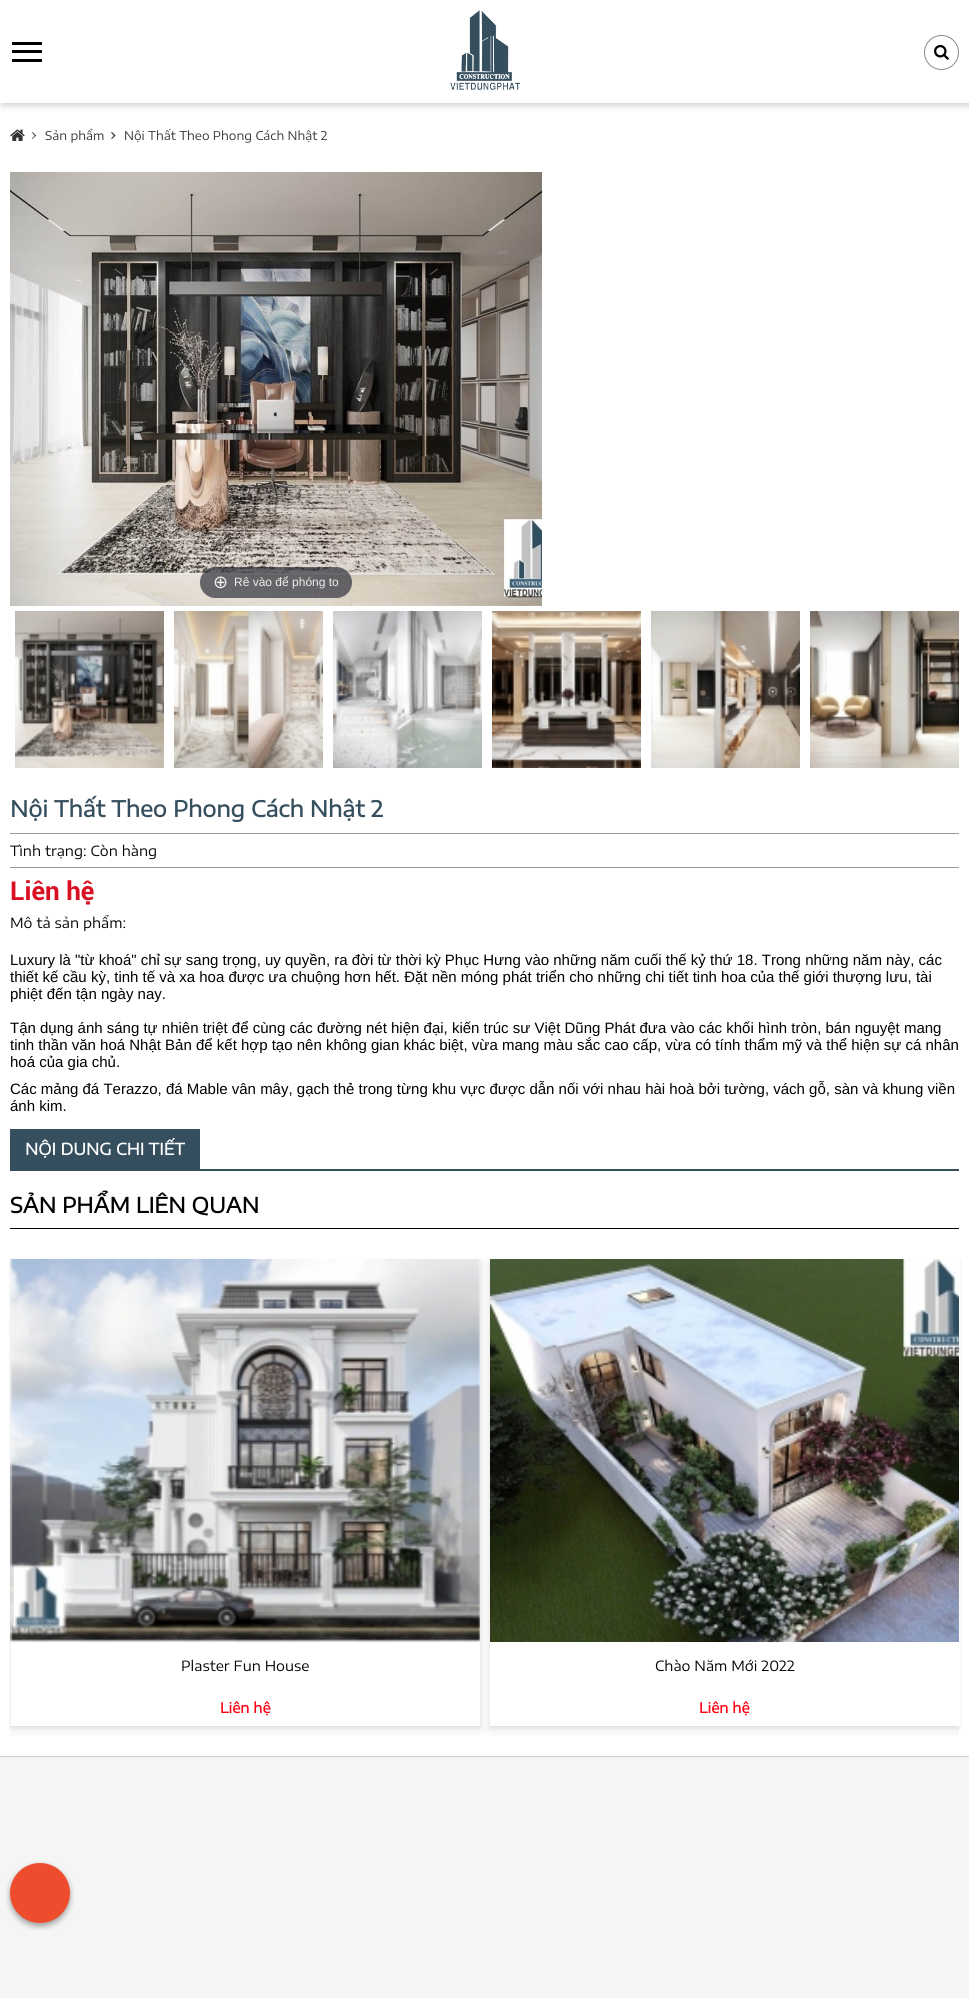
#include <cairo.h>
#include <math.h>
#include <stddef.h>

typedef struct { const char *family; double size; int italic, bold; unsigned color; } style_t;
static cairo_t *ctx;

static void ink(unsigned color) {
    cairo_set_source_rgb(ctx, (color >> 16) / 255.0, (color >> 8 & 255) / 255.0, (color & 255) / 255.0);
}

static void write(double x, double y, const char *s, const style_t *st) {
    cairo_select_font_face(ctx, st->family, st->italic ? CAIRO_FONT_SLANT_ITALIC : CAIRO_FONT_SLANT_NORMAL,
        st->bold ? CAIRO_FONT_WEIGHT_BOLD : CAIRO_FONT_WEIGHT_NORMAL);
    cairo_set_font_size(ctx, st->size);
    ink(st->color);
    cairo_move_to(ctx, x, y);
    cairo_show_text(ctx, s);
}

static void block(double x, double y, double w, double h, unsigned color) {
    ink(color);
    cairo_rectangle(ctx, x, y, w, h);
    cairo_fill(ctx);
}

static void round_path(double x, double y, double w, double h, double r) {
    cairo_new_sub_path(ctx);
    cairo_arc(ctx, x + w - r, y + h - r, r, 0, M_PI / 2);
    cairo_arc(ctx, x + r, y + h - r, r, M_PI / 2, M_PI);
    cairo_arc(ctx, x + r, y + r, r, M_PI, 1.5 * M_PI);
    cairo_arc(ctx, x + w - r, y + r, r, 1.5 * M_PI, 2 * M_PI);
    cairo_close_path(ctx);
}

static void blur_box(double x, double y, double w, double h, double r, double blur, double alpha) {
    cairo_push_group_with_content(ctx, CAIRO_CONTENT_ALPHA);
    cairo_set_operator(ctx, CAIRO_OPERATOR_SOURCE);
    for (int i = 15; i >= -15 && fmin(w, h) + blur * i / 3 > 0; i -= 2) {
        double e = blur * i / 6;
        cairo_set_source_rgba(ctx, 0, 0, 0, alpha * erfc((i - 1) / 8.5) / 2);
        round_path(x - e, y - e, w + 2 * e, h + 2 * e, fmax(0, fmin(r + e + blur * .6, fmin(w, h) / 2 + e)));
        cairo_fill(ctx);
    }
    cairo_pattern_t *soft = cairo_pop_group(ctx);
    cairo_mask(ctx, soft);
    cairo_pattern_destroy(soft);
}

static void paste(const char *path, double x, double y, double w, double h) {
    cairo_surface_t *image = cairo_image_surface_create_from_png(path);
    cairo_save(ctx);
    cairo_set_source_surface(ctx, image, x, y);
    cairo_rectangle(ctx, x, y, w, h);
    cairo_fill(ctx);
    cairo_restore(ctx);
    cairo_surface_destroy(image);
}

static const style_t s1 = {"Encode Sans Expanded", 12, 0, 0, 0x333333};
static const style_t s2 = {"DejaVu Sans", 18, 0, 0, 0xeeeeee};
static const style_t s3 = {"Liberation Sans", 12, 0, 0, 0xeeeeee};
static const style_t s4 = {"Encode Sans Expanded", 22, 0, 1, 0x364f5f};
static const style_t s5 = {"Encode Sans Expanded", 14, 0, 0, 0x000000};
static const style_t s6 = {"Roboto", 26, 0, 1, 0xdb0f22};
static const style_t s7 = {"Liberation Sans", 15, 0, 0, 0x000000};
static const style_t s8 = {"Encode Sans Expanded", 16, 0, 1, 0xffffff};
static const style_t s9 = {"Encode Sans Expanded", 21, 0, 1, 0x000000};
static const style_t s10 = {"Encode Sans Expanded", 14, 0, 1, 0xff0011};

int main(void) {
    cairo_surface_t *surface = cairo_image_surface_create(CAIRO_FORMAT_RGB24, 969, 1998);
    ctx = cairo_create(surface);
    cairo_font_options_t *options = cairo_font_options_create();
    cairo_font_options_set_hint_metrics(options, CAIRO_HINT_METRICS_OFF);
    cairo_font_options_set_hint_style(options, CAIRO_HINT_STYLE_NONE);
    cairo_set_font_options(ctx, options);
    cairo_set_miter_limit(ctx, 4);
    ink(0xffffff);
    cairo_paint(ctx);
    cairo_save(ctx);
    cairo_rectangle(ctx, 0, 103, 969, 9);
    cairo_clip(ctx);
    ink(0xcccccc);
    blur_box(2, 2, 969, 103, 0, 3.5, 1);
    cairo_restore(ctx);
    block(12, 42, 30, 3, 0x000000);
    block(12, 50, 30, 3, 0x000000);
    block(12, 59, 30, 3, 0x000000);
    paste("pic1.png", 450, 10, 70, 80);
    cairo_arc(ctx, 941.5, 52.5, 17, 0, 2 * M_PI);
    ink(0x848c92);
    cairo_set_line_width(ctx, 1);
    cairo_stroke(ctx);
    paste("pic2.png", 934, 44, 15, 16);
    paste("pic3.png", 10, 129, 15, 12);
    ink(0x333333);
    cairo_new_path(ctx);
    cairo_move_to(ctx, 32.5, 132);
    cairo_line_to(ctx, 36, 135.5);
    cairo_line_to(ctx, 35.5, 136.5);
    cairo_line_to(ctx, 32, 132.5);
    cairo_close_path(ctx);
    cairo_fill(ctx);
    cairo_new_path(ctx);
    cairo_move_to(ctx, 35.5, 135);
    cairo_line_to(ctx, 36, 135.5);
    cairo_line_to(ctx, 32.5, 139);
    cairo_line_to(ctx, 32, 138.5);
    cairo_close_path(ctx);
    cairo_fill(ctx);
    write(45, 140, "Sản phẩm", &s1);
    cairo_new_path(ctx);
    cairo_move_to(ctx, 112, 132);
    cairo_line_to(ctx, 115.5, 135.5);
    cairo_line_to(ctx, 114.5, 136.5);
    cairo_line_to(ctx, 111, 132.5);
    cairo_close_path(ctx);
    cairo_fill(ctx);
    cairo_new_path(ctx);
    cairo_move_to(ctx, 114.5, 135);
    cairo_line_to(ctx, 115.5, 135.5);
    cairo_line_to(ctx, 112, 139);
    cairo_line_to(ctx, 111, 138.5);
    cairo_close_path(ctx);
    cairo_fill(ctx);
    write(124, 140, "Nội Thất Theo Phong Cách Nhật 2", &s1);
    paste("pic4.png", 10, 172, 532, 434);
    cairo_set_source_rgba(ctx, 0.192, 0.2, 0.239, 0.7);
    round_path(200, 567, 152, 31, 15.5);
    cairo_fill(ctx);
    write(213, 588, "⊕", &s2);
    write(234, 586, "Rê vào để phóng to", &s3);
    paste("pic5.png", 15, 611, 149, 157);
    paste("pic6.png", 174, 611, 149, 157);
    paste("pic7.png", 333, 611, 149, 157);
    paste("pic8.png", 492, 611, 149, 157);
    paste("pic9.png", 651, 611, 149, 157);
    paste("pic10.png", 810, 611, 149, 157);
    block(10, 833, 949, 1, 0x999999);
    write(10, 817, "Nội Thất Theo Phong Cách Nhật 2", &s4);
    block(10, 867, 949, 1, 0x999999);
    write(10, 856, "Tình trạng: Còn hàng", &s5);
    write(10, 900, "Liên hệ", &s6);
    write(10, 928, "Mô tả sản phẩm:", &s5);
    write(10, 965, "Luxury là \"từ khoá\" chỉ sự sang trọng, uy quyền, ra đời từ thời kỳ Phục Hưng vào những năm cuối thế kỷ thứ 18. Trong những năm này, các", &s7);
    write(10, 982, "thiết kế cầu kỳ, tinh tế và xa hoa được ưa chuộng hơn hết. Đặt nền móng phát triển cho những chi tiết tinh hoa của thế giới thượng lưu, tài", &s7);
    write(10, 999, "phiệt đến tận ngày nay.", &s7);
    write(10, 1033, "Tận dụng ánh sáng tự nhiên triệt để cùng các đường nét hiện đại, kiến trúc sư Việt Dũng Phát đưa vào các khối hình tròn, bán nguyệt mang", &s7);
    write(10, 1050, "tinh thần văn hoá Nhật Bản để kết hợp tạo nên không gian khác biệt, vừa mang màu sắc cao cấp, vừa có tính thẩm mỹ và thể hiện sự cá nhân", &s7);
    write(10, 1067, "hoá của gia chủ.", &s7);
    write(10, 1094, "Các mảng đá Terazzo, đá Mable vân mây, gạch thẻ trong từng khu vực được dẫn nối với nhau hài hoà bởi tường, vách gỗ, sàn và khung viền", &s7);
    write(10, 1111, "ánh kim.", &s7);
    block(10, 1129, 190, 40, 0x364f5f);
    write(25, 1155, "NỘI DUNG CHI TIẾT", &s8);
    block(10, 1169, 949, 2, 0x364f5f);
    block(10, 1228, 949, 1, 0x000000);
    write(10, 1213, "SẢN PHẨM LIÊN QUAN", &s9);
    cairo_save(ctx);
    cairo_rectangle(ctx, 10, 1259, 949, 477);
    cairo_clip(ctx);
    cairo_set_fill_rule(ctx, CAIRO_FILL_RULE_EVEN_ODD);
    cairo_new_path(ctx);
    cairo_move_to(ctx, 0, 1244);
    cairo_line_to(ctx, 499, 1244);
    cairo_line_to(ctx, 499, 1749);
    cairo_line_to(ctx, 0, 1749);
    cairo_close_path(ctx);
    cairo_move_to(ctx, 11, 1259);
    cairo_line_to(ctx, 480, 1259);
    cairo_line_to(ctx, 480, 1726);
    cairo_line_to(ctx, 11, 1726);
    cairo_close_path(ctx);
    cairo_clip(ctx);
    ink(0x000000);
    blur_box(11, 1263, 469, 467, 0, 6, 0.08);
    cairo_restore(ctx);
    cairo_save(ctx);
    cairo_set_fill_rule(ctx, CAIRO_FILL_RULE_EVEN_ODD);
    cairo_new_path(ctx);
    cairo_move_to(ctx, 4, 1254);
    cairo_line_to(ctx, 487, 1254);
    cairo_line_to(ctx, 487, 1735);
    cairo_line_to(ctx, 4, 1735);
    cairo_close_path(ctx);
    cairo_move_to(ctx, 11, 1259);
    cairo_line_to(ctx, 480, 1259);
    cairo_line_to(ctx, 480, 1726);
    cairo_line_to(ctx, 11, 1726);
    cairo_close_path(ctx);
    cairo_clip(ctx);
    ink(0x000000);
    blur_box(11, 1261, 469, 467, 0, 2, 0.08);
    cairo_restore(ctx);
    paste("pic11.png", 10, 1259, 470, 384);
    write(181, 1671, "Plaster Fun House", &s5);
    write(220, 1713, "Liên hệ", &s10);
    cairo_save(ctx);
    cairo_rectangle(ctx, 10, 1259, 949, 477);
    cairo_clip(ctx);
    cairo_set_fill_rule(ctx, CAIRO_FILL_RULE_EVEN_ODD);
    cairo_new_path(ctx);
    cairo_move_to(ctx, 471, 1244);
    cairo_line_to(ctx, 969, 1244);
    cairo_line_to(ctx, 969, 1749);
    cairo_line_to(ctx, 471, 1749);
    cairo_close_path(ctx);
    cairo_move_to(ctx, 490, 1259);
    cairo_line_to(ctx, 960, 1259);
    cairo_line_to(ctx, 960, 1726);
    cairo_line_to(ctx, 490, 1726);
    cairo_close_path(ctx);
    cairo_clip(ctx);
    ink(0x000000);
    blur_box(490, 1263, 470, 467, 0, 6, 0.08);
    cairo_restore(ctx);
    cairo_save(ctx);
    cairo_set_fill_rule(ctx, CAIRO_FILL_RULE_EVEN_ODD);
    cairo_new_path(ctx);
    cairo_move_to(ctx, 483, 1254);
    cairo_line_to(ctx, 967, 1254);
    cairo_line_to(ctx, 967, 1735);
    cairo_line_to(ctx, 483, 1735);
    cairo_close_path(ctx);
    cairo_move_to(ctx, 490, 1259);
    cairo_line_to(ctx, 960, 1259);
    cairo_line_to(ctx, 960, 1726);
    cairo_line_to(ctx, 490, 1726);
    cairo_close_path(ctx);
    cairo_clip(ctx);
    ink(0x000000);
    blur_box(490, 1261, 470, 467, 0, 2, 0.08);
    cairo_restore(ctx);
    paste("pic12.png", 490, 1259, 469, 383);
    write(655, 1671, "Chào Năm Mới 2022", &s5);
    write(699, 1713, "Liên hệ", &s10);
    block(0, 1757, 969, 241, 0xf5f5f5);
    block(0, 1756, 969, 1, 0xcccccc);
    ink(0x000000);
    blur_box(10, 1866, 60, 60, 30, 3, 0.23);
    blur_box(10, 1866, 60, 60, 30, 3, 0.16);
    ink(0xee4d2d);
    cairo_arc(ctx, 40, 1893, 30, 0, 2 * M_PI);
    cairo_fill(ctx);
    cairo_surface_write_to_png(surface, "screenshot.png");
    cairo_font_options_destroy(options);
    cairo_destroy(ctx);
    cairo_surface_destroy(surface);
    return 0;
}
